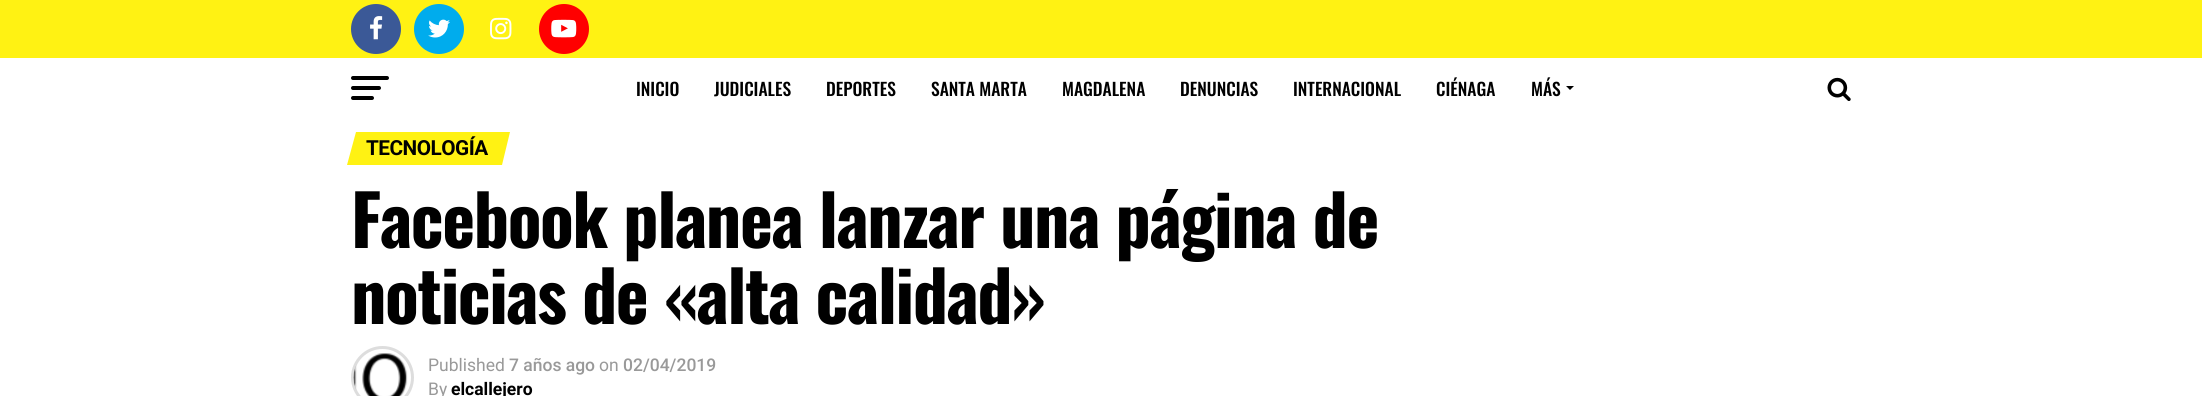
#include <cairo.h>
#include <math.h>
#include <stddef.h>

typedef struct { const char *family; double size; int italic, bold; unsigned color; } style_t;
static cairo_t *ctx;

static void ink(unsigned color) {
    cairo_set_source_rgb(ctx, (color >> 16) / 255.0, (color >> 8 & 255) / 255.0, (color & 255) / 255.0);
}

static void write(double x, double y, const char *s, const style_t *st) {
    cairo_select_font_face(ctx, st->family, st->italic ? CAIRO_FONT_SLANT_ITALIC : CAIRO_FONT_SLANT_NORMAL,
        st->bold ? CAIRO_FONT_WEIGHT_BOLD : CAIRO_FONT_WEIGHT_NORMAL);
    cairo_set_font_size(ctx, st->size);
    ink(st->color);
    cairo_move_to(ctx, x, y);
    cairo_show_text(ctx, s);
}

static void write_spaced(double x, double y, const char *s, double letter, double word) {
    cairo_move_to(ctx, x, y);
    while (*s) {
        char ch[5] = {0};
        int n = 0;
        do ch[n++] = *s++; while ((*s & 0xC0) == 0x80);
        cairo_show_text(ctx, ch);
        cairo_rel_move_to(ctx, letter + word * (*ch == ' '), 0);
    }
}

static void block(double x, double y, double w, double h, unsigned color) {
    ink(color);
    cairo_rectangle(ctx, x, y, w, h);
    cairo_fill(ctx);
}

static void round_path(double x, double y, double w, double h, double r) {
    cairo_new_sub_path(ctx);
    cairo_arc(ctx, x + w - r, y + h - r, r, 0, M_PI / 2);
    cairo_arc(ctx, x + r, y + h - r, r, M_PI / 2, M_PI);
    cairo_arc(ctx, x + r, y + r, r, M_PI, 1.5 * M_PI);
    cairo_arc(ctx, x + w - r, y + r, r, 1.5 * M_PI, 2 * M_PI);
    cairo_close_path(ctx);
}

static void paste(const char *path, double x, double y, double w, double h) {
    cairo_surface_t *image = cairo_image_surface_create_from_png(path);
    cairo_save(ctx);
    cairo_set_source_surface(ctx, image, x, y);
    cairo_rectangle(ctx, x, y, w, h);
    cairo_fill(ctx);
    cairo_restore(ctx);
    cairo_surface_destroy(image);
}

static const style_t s1 = {"Oswald Medium", 17.5, 0, 0, 0x000000};
static const style_t s2 = {"Roboto", 17.5, 0, 0, 0x999999};
static const style_t s3 = {"Roboto Medium", 17.5, 0, 0, 0x999999};
static const style_t s4 = {"Roboto", 17.5, 0, 1, 0x000000};

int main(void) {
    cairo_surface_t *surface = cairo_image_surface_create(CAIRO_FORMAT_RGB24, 2202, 396);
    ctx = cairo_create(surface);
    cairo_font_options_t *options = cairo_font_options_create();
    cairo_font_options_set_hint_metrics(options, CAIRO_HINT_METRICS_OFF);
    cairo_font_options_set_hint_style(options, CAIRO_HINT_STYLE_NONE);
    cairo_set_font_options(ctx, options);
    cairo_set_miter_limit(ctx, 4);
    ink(0xffffff);
    cairo_paint(ctx);
    block(0, 0, 2202, 58, 0xfff213);
    ink(0x3b5997);
    cairo_arc(ctx, 376, 29, 25, 0, 2 * M_PI);
    cairo_fill(ctx);
    paste("pic1.png", 370, 16, 13, 24);
    ink(0x00aced);
    cairo_arc(ctx, 439, 29, 25, 0, 2 * M_PI);
    cairo_fill(ctx);
    paste("pic2.png", 428, 19, 22, 19);
    paste("pic3.png", 490, 17, 22, 23);
    ink(0xff0000);
    cairo_arc(ctx, 564, 29, 25, 0, 2 * M_PI);
    cairo_fill(ctx);
    paste("pic4.png", 551, 19, 26, 19);
    ink(0x000000);
    round_path(351, 76, 38, 4, 2);
    cairo_fill(ctx);
    round_path(351, 86, 30, 4, 2);
    cairo_fill(ctx);
    round_path(351, 96, 23, 4, 2);
    cairo_fill(ctx);
    write(636, 96, "INICIO", &s1);
    write(714, 96, "JUDICIALES", &s1);
    write(826, 96, "DEPORTES", &s1);
    write(931, 96, "SANTA MARTA", &s1);
    write(1062, 96, "MAGDALENA", &s1);
    write(1180, 96, "DENUNCIAS", &s1);
    write(1293, 96, "INTERNACIONAL", &s1);
    write(1436, 96, "CIÉNAGA", &s1);
    write(1531, 96, "MÁS", &s1);
    cairo_new_path(ctx);
    cairo_move_to(ctx, 1566, 86);
    cairo_line_to(ctx, 1574, 86);
    cairo_line_to(ctx, 1570, 90);
    cairo_close_path(ctx);
    cairo_fill(ctx);
    paste("pic5.png", 1827, 77, 24, 24);
    ink(0xfff213);
    cairo_new_path(ctx);
    cairo_move_to(ctx, 356, 132);
    cairo_line_to(ctx, 510, 132);
    cairo_line_to(ctx, 502, 165);
    cairo_line_to(ctx, 347, 165);
    cairo_close_path(ctx);
    cairo_fill(ctx);
    cairo_select_font_face(ctx, "Roboto", CAIRO_FONT_SLANT_NORMAL, CAIRO_FONT_WEIGHT_BOLD);
    cairo_set_font_size(ctx, 20.75);
    ink(0x000000);
    write_spaced(366, 155, "TECNOLOGÍA", -0.5, 0);
    cairo_select_font_face(ctx, "Oswald", CAIRO_FONT_SLANT_NORMAL, CAIRO_FONT_WEIGHT_BOLD);
    cairo_set_font_size(ctx, 70);
    write_spaced(351, 248, "Facebook planea lanzar una página de", -1.4, 0);
    write_spaced(351, 324, "noticias de «alta calidad»", -1.4, 0);
    cairo_new_path(ctx);
    cairo_arc(ctx, 382.5, 377.5, 30, 0, 2 * M_PI);
    ink(0xdddddd);
    cairo_set_line_width(ctx, 3);
    cairo_stroke(ctx);
    paste("pic6.png", 353, 353, 55, 43);
    write(428, 371, "Published", &s2);
    write(509, 371, "7 años ago", &s3);
    write(599, 371, "on", &s2);
    write(623, 371, "02/04/2019", &s3);
    write(428, 395, "By", &s2);
    write(451, 395, "elcallejero", &s4);
    cairo_surface_write_to_png(surface, "screenshot.png");
    cairo_font_options_destroy(options);
    cairo_destroy(ctx);
    cairo_surface_destroy(surface);
    return 0;
}
